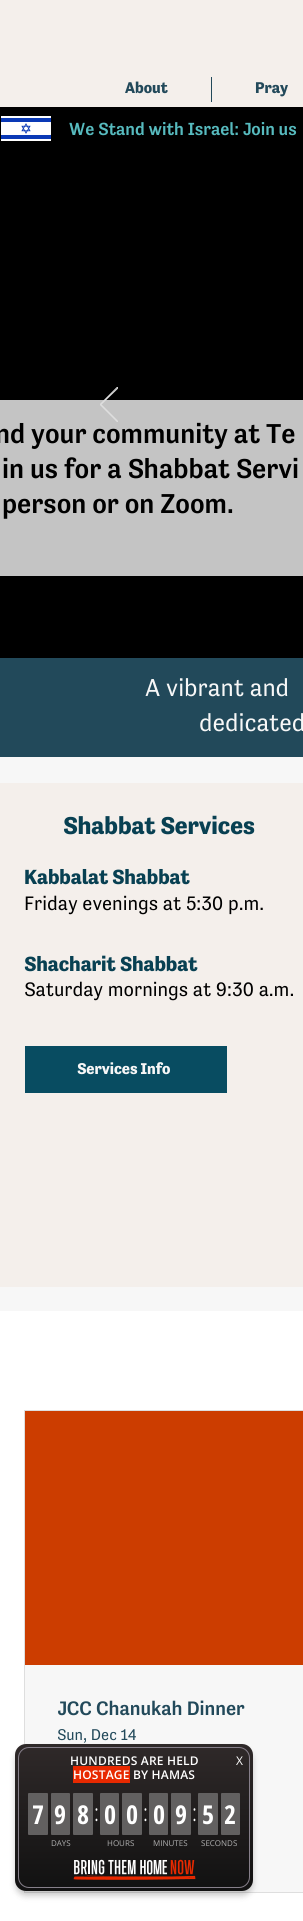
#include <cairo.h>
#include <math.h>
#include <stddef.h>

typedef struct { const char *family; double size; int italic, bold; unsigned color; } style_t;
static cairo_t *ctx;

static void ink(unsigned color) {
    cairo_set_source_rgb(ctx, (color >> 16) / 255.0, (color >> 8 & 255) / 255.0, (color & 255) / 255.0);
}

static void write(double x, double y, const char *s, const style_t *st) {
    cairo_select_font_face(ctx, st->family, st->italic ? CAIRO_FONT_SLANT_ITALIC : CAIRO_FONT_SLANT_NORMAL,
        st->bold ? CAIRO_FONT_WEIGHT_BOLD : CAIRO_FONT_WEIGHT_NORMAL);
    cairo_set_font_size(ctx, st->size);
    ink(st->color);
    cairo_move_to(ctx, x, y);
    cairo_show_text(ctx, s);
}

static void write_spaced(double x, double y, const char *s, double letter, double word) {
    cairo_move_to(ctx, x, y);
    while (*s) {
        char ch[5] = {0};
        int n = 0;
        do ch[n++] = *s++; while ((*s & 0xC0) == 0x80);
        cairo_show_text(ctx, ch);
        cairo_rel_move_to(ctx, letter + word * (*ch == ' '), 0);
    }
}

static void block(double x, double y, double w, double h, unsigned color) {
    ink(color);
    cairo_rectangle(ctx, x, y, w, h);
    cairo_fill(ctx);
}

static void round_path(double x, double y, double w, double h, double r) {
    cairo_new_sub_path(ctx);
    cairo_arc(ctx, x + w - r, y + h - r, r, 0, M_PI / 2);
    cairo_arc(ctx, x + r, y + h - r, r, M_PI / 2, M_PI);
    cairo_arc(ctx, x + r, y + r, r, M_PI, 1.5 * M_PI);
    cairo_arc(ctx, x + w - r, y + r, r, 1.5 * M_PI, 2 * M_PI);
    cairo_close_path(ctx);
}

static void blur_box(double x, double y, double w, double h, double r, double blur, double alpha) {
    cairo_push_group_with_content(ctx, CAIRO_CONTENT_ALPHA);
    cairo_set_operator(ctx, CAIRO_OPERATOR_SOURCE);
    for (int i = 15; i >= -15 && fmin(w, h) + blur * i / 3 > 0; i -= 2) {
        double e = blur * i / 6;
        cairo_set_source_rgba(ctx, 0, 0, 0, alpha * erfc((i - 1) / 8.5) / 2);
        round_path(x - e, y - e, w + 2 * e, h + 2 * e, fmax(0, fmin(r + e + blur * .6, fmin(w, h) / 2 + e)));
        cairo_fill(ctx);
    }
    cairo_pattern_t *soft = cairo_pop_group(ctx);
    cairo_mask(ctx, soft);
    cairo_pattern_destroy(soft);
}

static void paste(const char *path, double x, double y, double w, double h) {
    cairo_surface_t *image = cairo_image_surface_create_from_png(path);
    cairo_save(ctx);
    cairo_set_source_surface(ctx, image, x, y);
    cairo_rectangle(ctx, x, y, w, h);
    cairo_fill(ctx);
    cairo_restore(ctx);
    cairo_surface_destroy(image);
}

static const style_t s1 = {"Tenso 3", 16, 0, 0, 0x22495a};
static const style_t s2 = {"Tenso", 18, 0, 0, 0x57bbbf};
static const style_t s3 = {"Tenso", 28, 0, 0, 0x000000};
static const style_t s4 = {"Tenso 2", 25, 0, 0, 0xf7f7f7};
static const style_t s5 = {"Tenso 3", 25, 0, 0, 0x084052};
static const style_t s6 = {"Tenso 3", 21, 0, 0, 0x084052};
static const style_t s7 = {"Tenso 2", 20, 0, 0, 0x000000};
static const style_t s8 = {"Tenso 3", 16, 0, 0, 0xf7f7f7};
static const style_t s9 = {"Tenso", 20, 0, 0, 0x22495a};
static const style_t s10 = {"Tenso 2", 16, 0, 0, 0x22495a};
static const style_t s11 = {"Open Sans Condensed", 26, 0, 1, 0xffffff};
static const style_t s12 = {"Open Sans", 8, 0, 0, 0xafafaf};
static const style_t s13 = {"Open Sans Condensed Light", 24, 0, 0, 0xffffff};
static const style_t s14 = {"Open Sans", 12, 0, 0, 0xffffff};

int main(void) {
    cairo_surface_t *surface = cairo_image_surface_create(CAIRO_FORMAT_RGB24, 303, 1921);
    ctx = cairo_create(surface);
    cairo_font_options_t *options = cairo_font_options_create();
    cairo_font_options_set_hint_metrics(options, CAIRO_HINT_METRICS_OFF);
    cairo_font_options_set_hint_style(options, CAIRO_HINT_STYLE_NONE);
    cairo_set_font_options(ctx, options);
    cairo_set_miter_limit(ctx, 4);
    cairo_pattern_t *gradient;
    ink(0xffffff);
    cairo_paint(ctx);
    block(0, 0, 303, 107, 0xf4efeb);
    write(125, 93, "About", &s1);
    block(211, 77, 1, 25, 0x22495a);
    write(255, 93, "Pray", &s1);
    block(0, 107, 303, 551, 0x000000);
    paste("pic1.png", 1, 116, 50, 25);
    write(69, 135, "We Stand with Israel: Join us", &s2);
    block(0, 400, 303, 176, 0xc4c4c4);
    cairo_save(ctx);
    cairo_rectangle(ctx, 100, 387, 18, 35);
    cairo_clip(ctx);
    cairo_new_path(ctx);
    cairo_move_to(ctx, 117.5, 422);
    cairo_line_to(ctx, 100, 404.5);
    cairo_line_to(ctx, 117.5, 387);
    cairo_line_to(ctx, 118, 388);
    cairo_line_to(ctx, 101, 404.5);
    cairo_line_to(ctx, 118, 421.5);
    cairo_close_path(ctx);
    ink(0xdedede);
    cairo_set_line_width(ctx, 0.9);
    cairo_stroke(ctx);
    cairo_restore(ctx);
    write(-5, 443, "nd your community at Te", &s3);
    write(2, 478, "in us for a Shabbat Servi", &s3);
    write(2, 513, "person or on Zoom.", &s3);
    block(0, 658, 303, 99, 0x22495a);
    write(145, 696, "A vibrant and", &s4);
    write(199, 731, "dedicated", &s4);
    block(0, 757, 303, 554, 0xf7f7f7);
    block(0, 783, 303, 504, 0xf4efeb);
    write(63, 834, "Shabbat Services", &s5);
    write(24, 884, "Kabbalat Shabbat", &s6);
    write(24, 910, "Friday evenings at 5:30 p.m.", &s7);
    write(24, 971, "Shacharit Shabbat", &s6);
    write(24, 996, "Saturday mornings at 9:30 a.m.", &s7);
    block(25, 1046, 202, 47, 0x084c61);
    write(77, 1074, "Services Info", &s8);
    cairo_rectangle(ctx, 24.5, 1410.5, 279, 482);
    ink(0xdedede);
    cairo_set_line_width(ctx, 1);
    cairo_stroke(ctx);
    block(25, 1665, 278, 227, 0xf7f7f7);
    block(25, 1411, 278, 254, 0xcc3d00);
    write(57, 1715, "JCC Chanukah Dinner", &s9);
    write(57, 1740, "Sun, Dec 14", &s10);
    ink(0x000000);
    blur_box(15, 1749, 238, 147, 11, 3, 0.2);
    gradient = cairo_pattern_create_linear(134, 1744, 134, 1891);
    cairo_pattern_add_color_stop_rgba(gradient, 0, 0.184, 0.161, 0.161, 1);
    cairo_pattern_add_color_stop_rgba(gradient, 1, 0.067, 0.067, 0.067, 1);
    cairo_set_source(ctx, gradient);
    cairo_pattern_destroy(gradient);
    round_path(15, 1744, 238, 147, 11);
    cairo_fill(ctx);
    round_path(18.5, 1747.5, 231, 140, 10.5);
    ink(0x867f8a);
    cairo_stroke(ctx);
    cairo_select_font_face(ctx, "Open Sans SemiBold", CAIRO_FONT_SLANT_NORMAL, CAIRO_FONT_WEIGHT_NORMAL);
    cairo_set_font_size(ctx, 12);
    ink(0xffffff);
    write_spaced(70, 1765, "HUNDREDS ARE HELD", 0.2, 0);
    block(73, 1766, 57, 17, 0xe82900);
    ink(0xffffff);
    write_spaced(73, 1779, "HOSTAGE BY HAMAS", 0.2, 0);
    ink(0x626060);
    round_path(28, 1793, 20, 42, 1);
    cairo_fill(ctx);
    write(32, 1824, "7", &s11);
    ink(0x626060);
    round_path(51, 1793, 19, 42, 1);
    cairo_fill(ctx);
    write(54, 1824, "9", &s11);
    ink(0x626060);
    round_path(73, 1793, 20, 42, 1);
    cairo_fill(ctx);
    write(77, 1824, "8", &s11);
    write(51, 1846, "DAYS", &s12);
    write(94, 1821, ":", &s13);
    ink(0x626060);
    round_path(100, 1793, 19, 42, 1);
    cairo_fill(ctx);
    write(104, 1824, "0", &s11);
    ink(0x626060);
    round_path(122, 1793, 20, 42, 1);
    cairo_fill(ctx);
    write(126, 1824, "0", &s11);
    write(107, 1846, "HOURS", &s12);
    write(143, 1821, ":", &s13);
    ink(0x626060);
    round_path(149, 1793, 19, 42, 1);
    cairo_fill(ctx);
    write(153, 1824, "0", &s11);
    ink(0x626060);
    round_path(171, 1793, 20, 42, 1);
    cairo_fill(ctx);
    write(175, 1824, "9", &s11);
    write(153, 1846, "MINUTES", &s12);
    write(192, 1821, ":", &s13);
    ink(0x626060);
    round_path(198, 1793, 20, 42, 1);
    cairo_fill(ctx);
    write(202, 1824, "5", &s11);
    ink(0x626060);
    round_path(221, 1793, 19, 42, 1);
    cairo_fill(ctx);
    write(224, 1824, "2", &s11);
    write(201, 1846, "SECONDS", &s12);
    paste("pic2.png", 73, 1859, 123, 21);
    write(236, 1765, "X", &s14);
    cairo_surface_write_to_png(surface, "screenshot.png");
    cairo_font_options_destroy(options);
    cairo_destroy(ctx);
    cairo_surface_destroy(surface);
    return 0;
}
